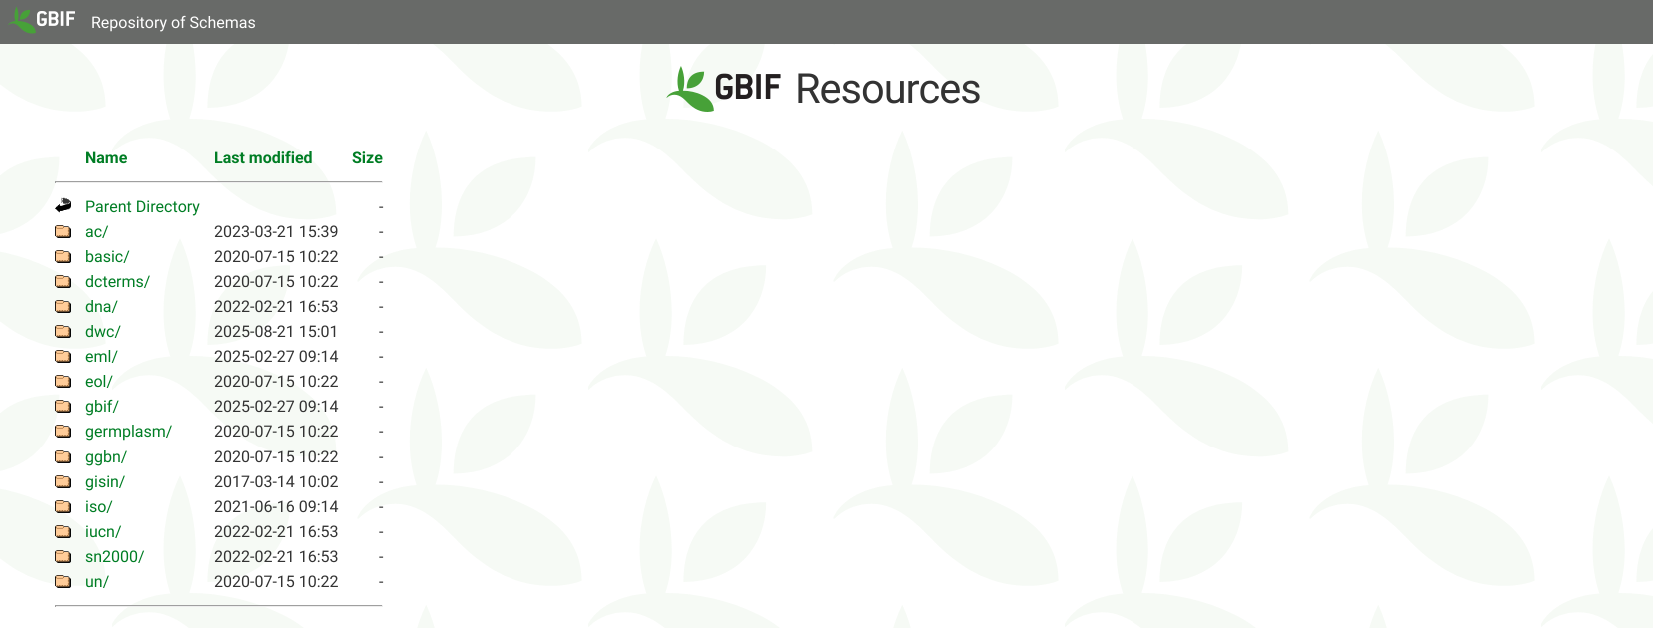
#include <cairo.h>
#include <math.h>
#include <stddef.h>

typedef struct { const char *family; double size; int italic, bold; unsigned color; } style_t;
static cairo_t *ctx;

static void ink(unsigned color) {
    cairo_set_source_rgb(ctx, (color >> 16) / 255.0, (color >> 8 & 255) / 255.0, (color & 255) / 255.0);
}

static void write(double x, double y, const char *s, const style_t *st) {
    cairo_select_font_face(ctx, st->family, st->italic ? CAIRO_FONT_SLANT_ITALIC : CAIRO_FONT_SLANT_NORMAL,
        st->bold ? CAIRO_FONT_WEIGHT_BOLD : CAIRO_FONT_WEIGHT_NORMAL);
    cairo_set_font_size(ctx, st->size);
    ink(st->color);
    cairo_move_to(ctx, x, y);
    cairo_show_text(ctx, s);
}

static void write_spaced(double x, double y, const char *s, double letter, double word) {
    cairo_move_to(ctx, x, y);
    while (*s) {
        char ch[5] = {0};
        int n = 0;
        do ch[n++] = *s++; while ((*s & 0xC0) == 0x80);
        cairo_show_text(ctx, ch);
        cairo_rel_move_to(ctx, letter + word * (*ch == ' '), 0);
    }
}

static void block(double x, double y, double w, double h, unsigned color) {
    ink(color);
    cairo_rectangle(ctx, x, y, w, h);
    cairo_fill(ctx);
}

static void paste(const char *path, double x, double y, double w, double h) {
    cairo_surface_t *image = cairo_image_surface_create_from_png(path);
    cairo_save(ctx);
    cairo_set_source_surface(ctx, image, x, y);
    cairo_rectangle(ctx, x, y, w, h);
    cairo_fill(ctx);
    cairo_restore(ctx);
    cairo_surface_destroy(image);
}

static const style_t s1 = {"Roboto", 16, 0, 0, 0xffffff};
static const style_t s2 = {"Roboto", 16, 0, 1, 0x007d24};
static const style_t s3 = {"Roboto", 16, 0, 0, 0x007d24};
static const style_t s4 = {"Roboto", 16, 0, 0, 0x333333};

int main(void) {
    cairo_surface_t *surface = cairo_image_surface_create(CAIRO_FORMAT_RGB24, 1653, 628);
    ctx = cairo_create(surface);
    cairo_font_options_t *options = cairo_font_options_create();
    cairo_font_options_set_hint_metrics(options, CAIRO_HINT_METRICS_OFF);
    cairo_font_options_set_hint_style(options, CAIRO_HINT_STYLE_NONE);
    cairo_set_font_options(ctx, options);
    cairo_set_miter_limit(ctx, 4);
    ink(0xffffff);
    cairo_paint(ctx);
    paste("pic1.png", 0, 44, 1653, 584);
    block(0, 0, 1653, 44, 0x686a68);
    paste("pic2.png", 8, 6, 67, 28);
    write(91, 28, "Repository of Schemas", &s1);
    paste("pic3.png", 666, 66, 115, 46);
    cairo_set_font_size(ctx, 41.5);
    ink(0x333333);
    write_spaced(795, 103, "Resources", -1, 0);
    write(85, 163, "Name", &s2);
    write(214, 163, "Last modified", &s2);
    write(352, 163, "Size", &s2);
    block(55, 181, 328, 1, 0x9f9f9f);
    block(382, 181, 1, 2, 0xeeeeee);
    block(55, 182, 328, 1, 0xeeeeee);
    block(55, 181, 1, 2, 0x9f9f9f);
    paste("pic4.png", 55, 197, 16, 16);
    write(85, 212, "Parent Directory", &s3);
    write(379, 212, "-", &s4);
    paste("pic5.png", 55, 225, 16, 13);
    write(85, 237, "ac/", &s3);
    write(214, 237, "2023-03-21 15:39", &s4);
    write(379, 237, "-", &s4);
    paste("pic5.png", 55, 250, 16, 13);
    write(85, 262, "basic/", &s3);
    write(214, 262, "2020-07-15 10:22", &s4);
    write(379, 262, "-", &s4);
    paste("pic6.png", 55, 275, 16, 13);
    write(85, 287, "dcterms/", &s3);
    write(214, 287, "2020-07-15 10:22", &s4);
    write(379, 287, "-", &s4);
    paste("pic7.png", 55, 300, 16, 13);
    write(85, 312, "dna/", &s3);
    write(214, 312, "2022-02-21 16:53", &s4);
    write(379, 312, "-", &s4);
    paste("pic7.png", 55, 325, 16, 13);
    write(85, 337, "dwc/", &s3);
    write(214, 337, "2025-08-21 15:01", &s4);
    write(379, 337, "-", &s4);
    paste("pic5.png", 55, 350, 16, 13);
    write(85, 362, "eml/", &s3);
    write(214, 362, "2025-02-27 09:14", &s4);
    write(379, 362, "-", &s4);
    paste("pic5.png", 55, 375, 16, 13);
    write(85, 387, "eol/", &s3);
    write(214, 387, "2020-07-15 10:22", &s4);
    write(379, 387, "-", &s4);
    paste("pic8.png", 55, 400, 16, 13);
    write(85, 412, "gbif/", &s3);
    write(214, 412, "2025-02-27 09:14", &s4);
    write(379, 412, "-", &s4);
    paste("pic5.png", 55, 425, 16, 13);
    write(85, 437, "germplasm/", &s3);
    write(214, 437, "2020-07-15 10:22", &s4);
    write(379, 437, "-", &s4);
    paste("pic5.png", 55, 450, 16, 13);
    write(85, 462, "ggbn/", &s3);
    write(214, 462, "2020-07-15 10:22", &s4);
    write(379, 462, "-", &s4);
    paste("pic5.png", 55, 475, 16, 13);
    write(85, 487, "gisin/", &s3);
    write(214, 487, "2017-03-14 10:02", &s4);
    write(379, 487, "-", &s4);
    paste("pic9.png", 55, 500, 16, 13);
    write(85, 512, "iso/", &s3);
    write(214, 512, "2021-06-16 09:14", &s4);
    write(379, 512, "-", &s4);
    paste("pic7.png", 55, 525, 16, 13);
    write(85, 537, "iucn/", &s3);
    write(214, 537, "2022-02-21 16:53", &s4);
    write(379, 537, "-", &s4);
    paste("pic7.png", 55, 550, 16, 13);
    write(85, 562, "sn2000/", &s3);
    write(214, 562, "2022-02-21 16:53", &s4);
    write(379, 562, "-", &s4);
    paste("pic10.png", 55, 575, 16, 13);
    write(85, 587, "un/", &s3);
    write(214, 587, "2020-07-15 10:22", &s4);
    write(379, 587, "-", &s4);
    block(55, 605, 328, 1, 0x9f9f9f);
    block(382, 605, 1, 2, 0xeeeeee);
    block(55, 606, 328, 1, 0xeeeeee);
    block(55, 605, 1, 2, 0x9f9f9f);
    cairo_surface_write_to_png(surface, "screenshot.png");
    cairo_font_options_destroy(options);
    cairo_destroy(ctx);
    cairo_surface_destroy(surface);
    return 0;
}
